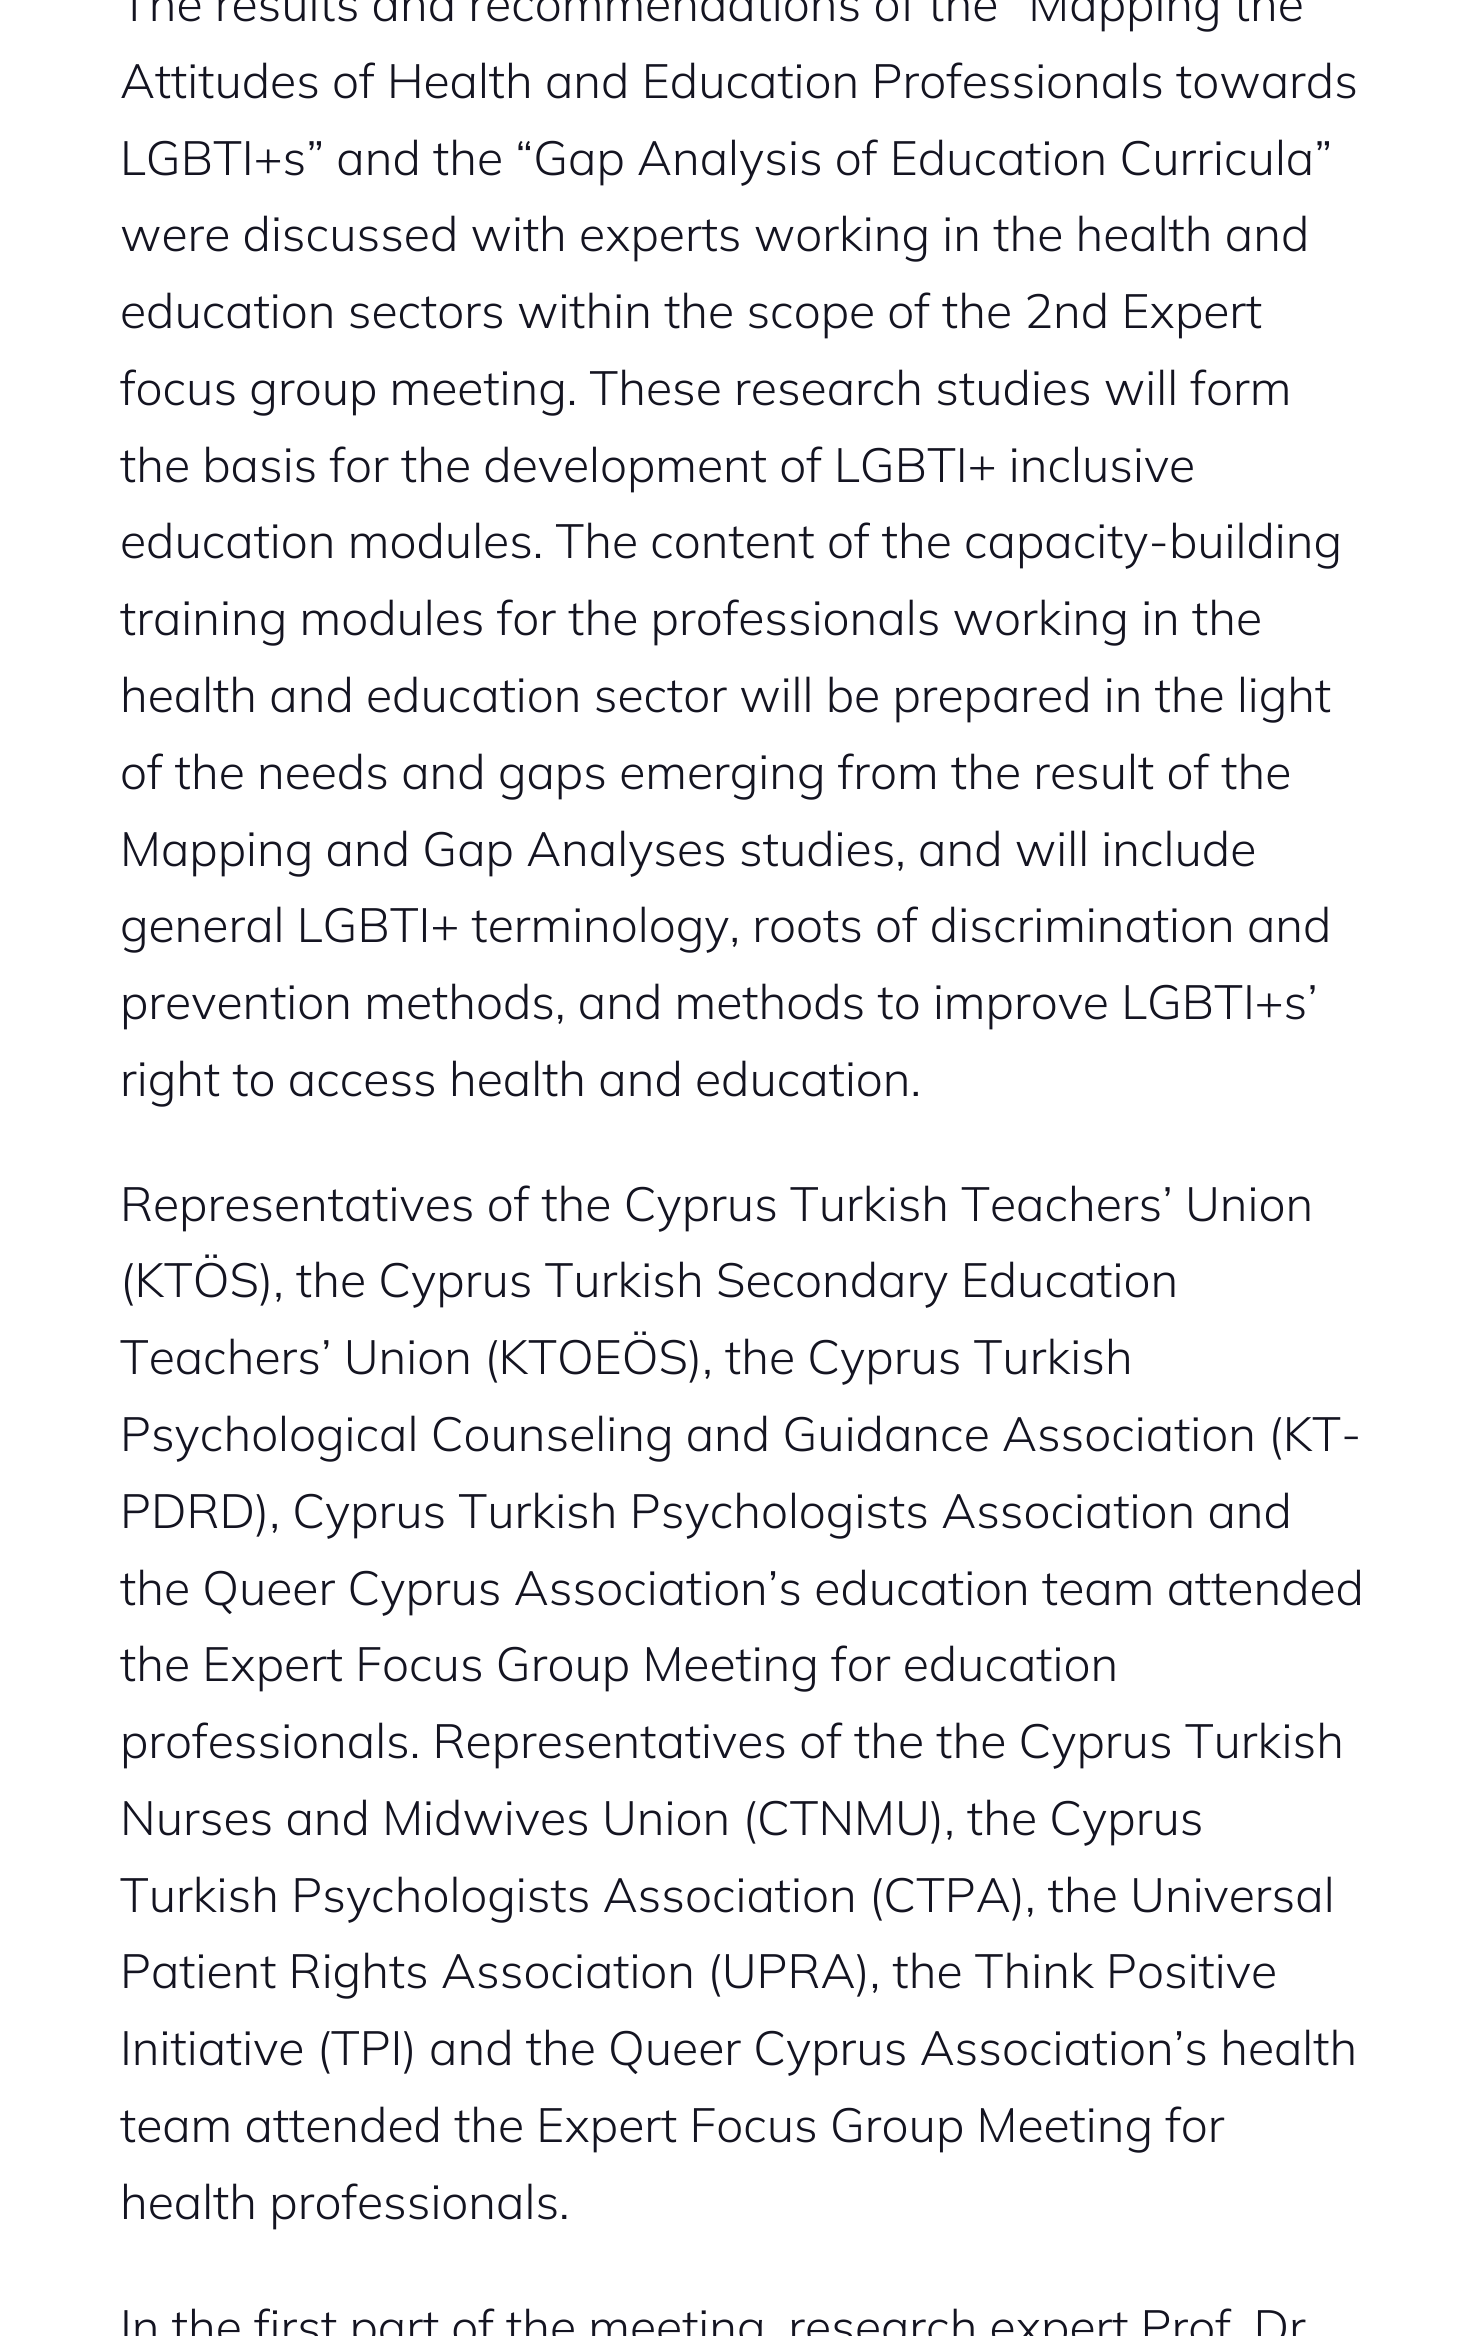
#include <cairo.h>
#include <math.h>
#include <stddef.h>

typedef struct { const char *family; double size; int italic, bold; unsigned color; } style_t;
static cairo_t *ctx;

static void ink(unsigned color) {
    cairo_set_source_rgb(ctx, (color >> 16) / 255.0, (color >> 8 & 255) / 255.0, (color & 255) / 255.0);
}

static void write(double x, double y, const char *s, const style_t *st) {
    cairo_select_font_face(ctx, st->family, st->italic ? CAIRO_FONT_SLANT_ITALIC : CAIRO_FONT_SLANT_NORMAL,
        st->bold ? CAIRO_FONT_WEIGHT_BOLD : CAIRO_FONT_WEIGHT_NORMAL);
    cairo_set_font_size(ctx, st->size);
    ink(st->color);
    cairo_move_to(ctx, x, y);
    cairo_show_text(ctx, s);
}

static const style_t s1 = {"Mulish Light", 48, 0, 0, 0x141421};

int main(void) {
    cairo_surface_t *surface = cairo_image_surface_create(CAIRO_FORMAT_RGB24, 1483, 2336);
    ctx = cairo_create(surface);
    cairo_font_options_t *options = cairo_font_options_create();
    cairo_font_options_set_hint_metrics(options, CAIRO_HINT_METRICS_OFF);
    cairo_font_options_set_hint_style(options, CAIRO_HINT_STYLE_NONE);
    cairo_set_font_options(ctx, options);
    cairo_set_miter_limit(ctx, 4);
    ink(0xffffff);
    cairo_paint(ctx);
    write(120, 21, "The results and recommendations of the “Mapping the", &s1);
    write(120, 98, "Attitudes of Health and Education Professionals towards", &s1);
    write(120, 175, "LGBTI+s” and the “Gap Analysis of Education Curricula”", &s1);
    write(120, 251, "were discussed with experts working in the health and", &s1);
    write(120, 328, "education sectors within the scope of the 2nd Expert", &s1);
    write(120, 405, "focus group meeting. These research studies will form", &s1);
    write(120, 482, "the basis for the development of LGBTI+ inclusive", &s1);
    write(120, 558, "education modules. The content of the capacity-building", &s1);
    write(120, 635, "training modules for the professionals working in the", &s1);
    write(120, 712, "health and education sector will be prepared in the light", &s1);
    write(120, 789, "of the needs and gaps emerging from the result of the", &s1);
    write(120, 866, "Mapping and Gap Analyses studies, and will include", &s1);
    write(120, 942, "general LGBTI+ terminology, roots of discrimination and", &s1);
    write(120, 1019, "prevention methods, and methods to improve LGBTI+s’", &s1);
    write(120, 1096, "right to access health and education.", &s1);
    write(120, 1221, "Representatives of the Cyprus Turkish Teachers’ Union", &s1);
    write(120, 1297, "(KTÖS), the Cyprus Turkish Secondary Education", &s1);
    write(120, 1374, "Teachers’ Union (KTOEÖS), the Cyprus Turkish", &s1);
    write(120, 1451, "Psychological Counseling and Guidance Association (KT-", &s1);
    write(120, 1528, "PDRD), Cyprus Turkish Psychologists Association and", &s1);
    write(120, 1605, "the Queer Cyprus Association’s education team attended", &s1);
    write(120, 1681, "the Expert Focus Group Meeting for education", &s1);
    write(120, 1758, "professionals. Representatives of the the Cyprus Turkish", &s1);
    write(120, 1835, "Nurses and Midwives Union (CTNMU), the Cyprus", &s1);
    write(120, 1912, "Turkish Psychologists Association (CTPA), the Universal", &s1);
    write(120, 1988, "Patient Rights Association (UPRA), the Think Positive", &s1);
    write(120, 2065, "Initiative (TPI) and the Queer Cyprus Association’s health", &s1);
    write(120, 2142, "team attended the Expert Focus Group Meeting for", &s1);
    write(120, 2219, "health professionals.", &s1);
    write(120, 2344, "In the first part of the meeting, research expert Prof. Dr", &s1);
    cairo_surface_write_to_png(surface, "screenshot.png");
    cairo_font_options_destroy(options);
    cairo_destroy(ctx);
    cairo_surface_destroy(surface);
    return 0;
}
